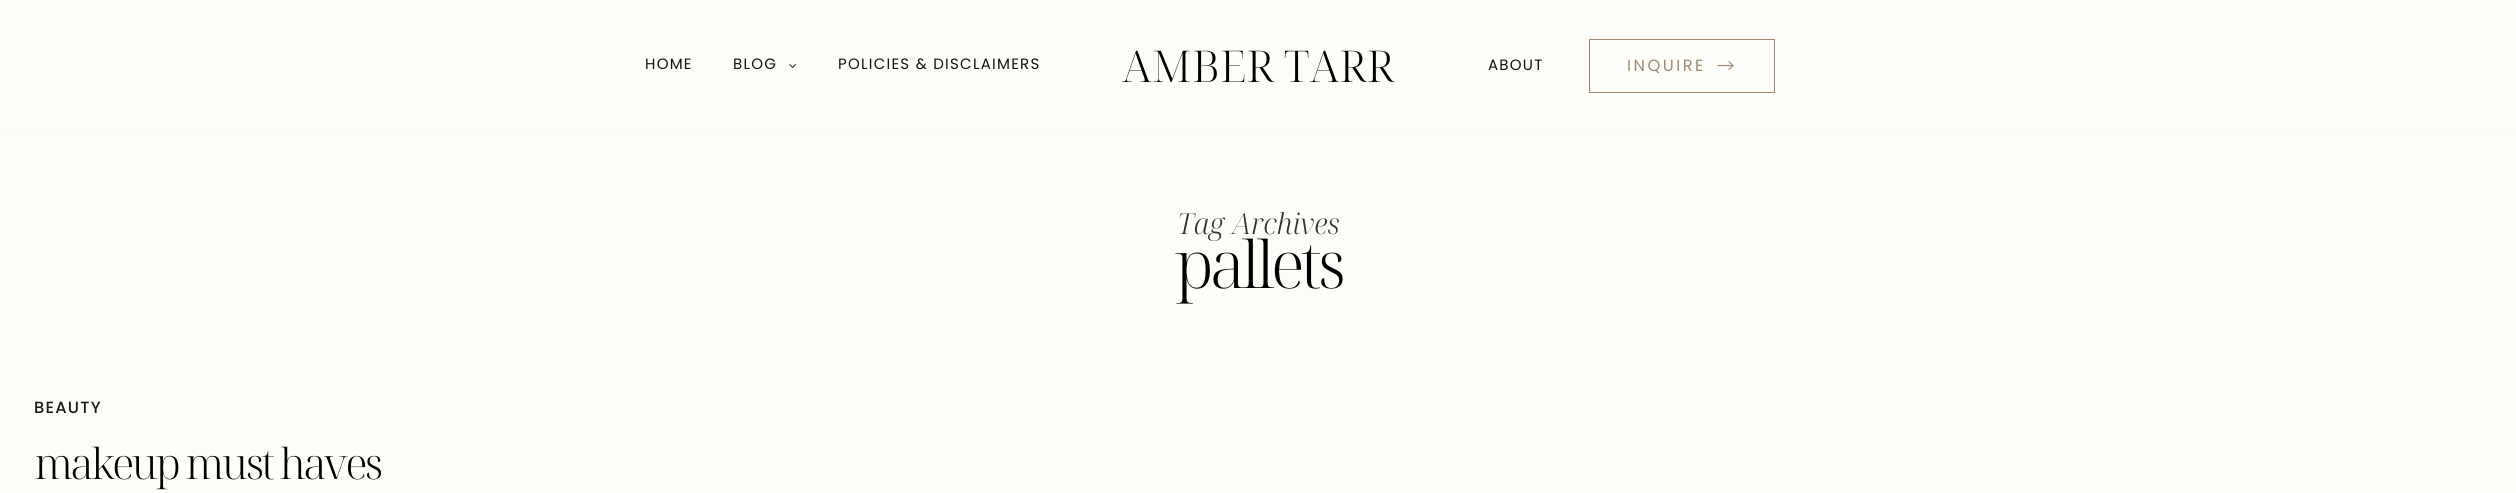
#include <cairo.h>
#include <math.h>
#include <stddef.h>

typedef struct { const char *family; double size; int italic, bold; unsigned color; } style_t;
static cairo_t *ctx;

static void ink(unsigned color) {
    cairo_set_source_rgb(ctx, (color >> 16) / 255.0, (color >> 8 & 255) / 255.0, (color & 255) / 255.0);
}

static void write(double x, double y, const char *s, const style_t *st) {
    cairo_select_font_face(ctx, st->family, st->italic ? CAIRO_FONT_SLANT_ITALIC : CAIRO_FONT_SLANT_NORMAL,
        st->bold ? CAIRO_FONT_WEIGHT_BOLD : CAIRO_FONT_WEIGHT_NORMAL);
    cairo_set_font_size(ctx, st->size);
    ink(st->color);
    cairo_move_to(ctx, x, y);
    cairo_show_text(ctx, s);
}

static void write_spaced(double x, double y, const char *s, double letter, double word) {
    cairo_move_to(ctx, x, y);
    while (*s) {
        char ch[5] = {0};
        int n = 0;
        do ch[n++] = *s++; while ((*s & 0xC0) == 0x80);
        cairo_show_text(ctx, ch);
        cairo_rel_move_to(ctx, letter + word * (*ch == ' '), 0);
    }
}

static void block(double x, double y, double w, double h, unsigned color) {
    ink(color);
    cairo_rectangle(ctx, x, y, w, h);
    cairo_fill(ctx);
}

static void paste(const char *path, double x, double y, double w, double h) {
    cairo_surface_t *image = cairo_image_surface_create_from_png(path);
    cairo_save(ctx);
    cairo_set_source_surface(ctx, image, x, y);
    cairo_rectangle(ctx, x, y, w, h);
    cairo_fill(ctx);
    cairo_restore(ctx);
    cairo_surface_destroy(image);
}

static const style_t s1 = {"Noto Serif Display Light", 43.75, 0, 0, 0x000000};
static const style_t s2 = {"Noto Serif Display Light", 28.75, 1, 0, 0x303030};

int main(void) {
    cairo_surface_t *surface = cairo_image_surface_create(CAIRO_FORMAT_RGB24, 2516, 493);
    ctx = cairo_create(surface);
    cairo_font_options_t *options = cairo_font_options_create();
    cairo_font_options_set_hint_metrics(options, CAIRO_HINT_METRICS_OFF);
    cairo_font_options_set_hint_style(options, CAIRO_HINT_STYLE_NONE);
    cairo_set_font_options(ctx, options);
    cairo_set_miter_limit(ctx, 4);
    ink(0xfffdf9);
    cairo_paint(ctx);
    block(0, 130, 2516, 1, 0xfbf9f4);
    cairo_select_font_face(ctx, "Poppins", CAIRO_FONT_SLANT_NORMAL, CAIRO_FONT_WEIGHT_NORMAL);
    cairo_set_font_size(ctx, 15);
    ink(0x111111);
    write_spaced(645, 69, "HOME", 1.25, 0);
    write_spaced(733, 69, "BLOG", 1.25, 0);
    paste("pic1.png", 789, 64, 7, 4);
    write_spaced(838, 69, "POLICIES & DISCLAIMERS", 1.25, 0);
    write(1122, 82, "AMBER TARR", &s1);
    cairo_select_font_face(ctx, "Poppins", CAIRO_FONT_SLANT_NORMAL, CAIRO_FONT_WEIGHT_NORMAL);
    cairo_set_font_size(ctx, 15);
    ink(0x111111);
    write_spaced(1488, 70, "ABOUT", 1.25, 0);
    cairo_rectangle(ctx, 1589.5, 39.5, 185, 53);
    ink(0x9e8a73);
    cairo_set_line_width(ctx, 1);
    cairo_stroke(ctx);
    cairo_set_font_size(ctx, 16.25);
    write_spaced(1627, 71, "INQUIRE", 2.5, 0);
    paste("pic2.png", 1717, 61, 17, 9);
    write(1177, 234, "Tag Archives", &s2);
    cairo_select_font_face(ctx, "Noto Serif Display Light", CAIRO_FONT_SLANT_NORMAL, CAIRO_FONT_WEIGHT_NORMAL);
    cairo_set_font_size(ctx, 65);
    ink(0x000000);
    write_spaced(1175, 288, "pallets", -3.75, 0);
    cairo_select_font_face(ctx, "Poppins Medium", CAIRO_FONT_SLANT_NORMAL, CAIRO_FONT_WEIGHT_NORMAL);
    cairo_set_font_size(ctx, 16.25);
    ink(0x191919);
    write_spaced(34, 413, "BEAUTY", 1.25, 0);
    cairo_select_font_face(ctx, "Noto Serif Display Light", CAIRO_FONT_SLANT_NORMAL, CAIRO_FONT_WEIGHT_NORMAL);
    cairo_set_font_size(ctx, 42.5);
    ink(0x000000);
    write_spaced(34, 479, "makeup must haves", -2.5, 0);
    cairo_surface_write_to_png(surface, "screenshot.png");
    cairo_font_options_destroy(options);
    cairo_destroy(ctx);
    cairo_surface_destroy(surface);
    return 0;
}
